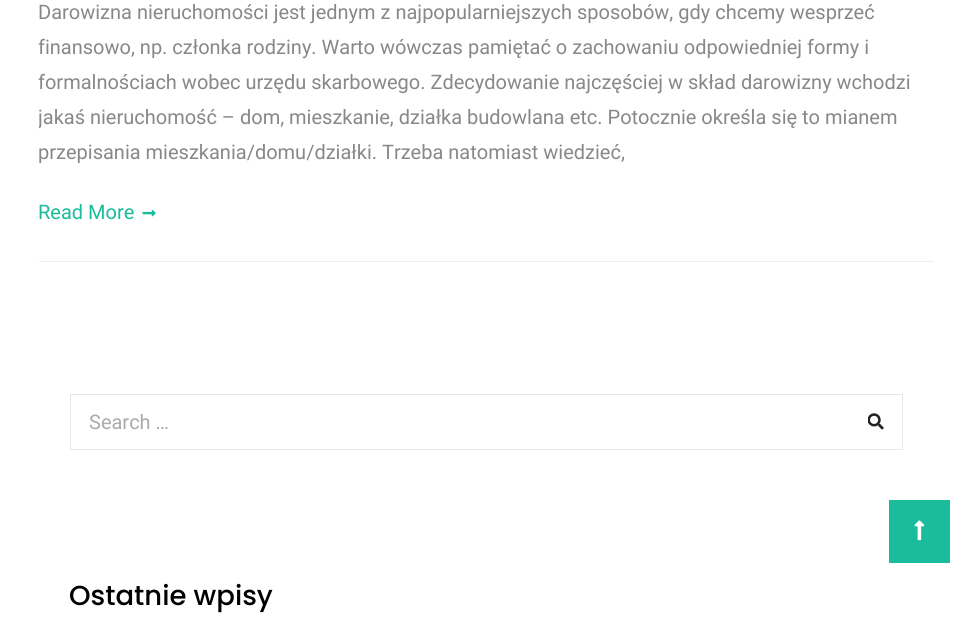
#include <cairo.h>
#include <math.h>
#include <stddef.h>

typedef struct { const char *family; double size; int italic, bold; unsigned color; } style_t;
static cairo_t *ctx;

static void ink(unsigned color) {
    cairo_set_source_rgb(ctx, (color >> 16) / 255.0, (color >> 8 & 255) / 255.0, (color & 255) / 255.0);
}

static void write(double x, double y, const char *s, const style_t *st) {
    cairo_select_font_face(ctx, st->family, st->italic ? CAIRO_FONT_SLANT_ITALIC : CAIRO_FONT_SLANT_NORMAL,
        st->bold ? CAIRO_FONT_WEIGHT_BOLD : CAIRO_FONT_WEIGHT_NORMAL);
    cairo_set_font_size(ctx, st->size);
    ink(st->color);
    cairo_move_to(ctx, x, y);
    cairo_show_text(ctx, s);
}

static void block(double x, double y, double w, double h, unsigned color) {
    ink(color);
    cairo_rectangle(ctx, x, y, w, h);
    cairo_fill(ctx);
}

static void paste(const char *path, double x, double y, double w, double h) {
    cairo_surface_t *image = cairo_image_surface_create_from_png(path);
    cairo_save(ctx);
    cairo_set_source_surface(ctx, image, x, y);
    cairo_rectangle(ctx, x, y, w, h);
    cairo_fill(ctx);
    cairo_restore(ctx);
    cairo_surface_destroy(image);
}

static const style_t s1 = {"Roboto", 20, 0, 0, 0x888888};
static const style_t s2 = {"Roboto", 20, 0, 0, 0x1abc9c};
static const style_t s3 = {"Roboto", 20, 0, 0, 0xaaaaaa};
static const style_t s4 = {"Poppins Medium", 27.5, 0, 0, 0x000000};

int main(void) {
    cairo_surface_t *surface = cairo_image_surface_create(CAIRO_FORMAT_RGB24, 972, 625);
    ctx = cairo_create(surface);
    cairo_font_options_t *options = cairo_font_options_create();
    cairo_font_options_set_hint_metrics(options, CAIRO_HINT_METRICS_OFF);
    cairo_font_options_set_hint_style(options, CAIRO_HINT_STYLE_NONE);
    cairo_set_font_options(ctx, options);
    cairo_set_miter_limit(ctx, 4);
    ink(0xffffff);
    cairo_paint(ctx);
    block(39, 261, 895, 1, 0xeeeeee);
    write(38, 19, "Darowizna nieruchomości jest jednym z najpopularniejszych sposobów, gdy chcemy wesprzeć", &s1);
    write(38, 54, "finansowo, np. członka rodziny. Warto wówczas pamiętać o zachowaniu odpowiedniej formy i", &s1);
    write(38, 89, "formalnościach wobec urzędu skarbowego. Zdecydowanie najczęściej w skład darowizny wchodzi", &s1);
    cairo_save(ctx);
    cairo_rectangle(ctx, 39, 0, 895, 261);
    cairo_clip(ctx);
    write(38, 124, "jakaś nieruchomość – dom, mieszkanie, działka budowlana etc. Potocznie określa się to mianem", &s1);
    cairo_restore(ctx);
    write(38, 159, "przepisania mieszkania/domu/działki. Trzeba natomiast wiedzieć,", &s1);
    write(38, 219, "Read More", &s2);
    paste("pic1.png", 142, 210, 14, 7);
    cairo_rectangle(ctx, 70.5, 394.5, 832, 55);
    ink(0xe7e7e7);
    cairo_set_line_width(ctx, 1);
    cairo_stroke(ctx);
    write(89, 429, "Search …", &s3);
    paste("pic2.png", 868, 413, 16, 17);
    write(69, 605, "Ostatnie wpisy", &s4);
    block(889, 500, 61, 63, 0x1abc9c);
    paste("pic3.png", 914, 520, 11, 21);
    cairo_surface_write_to_png(surface, "screenshot.png");
    cairo_font_options_destroy(options);
    cairo_destroy(ctx);
    cairo_surface_destroy(surface);
    return 0;
}
